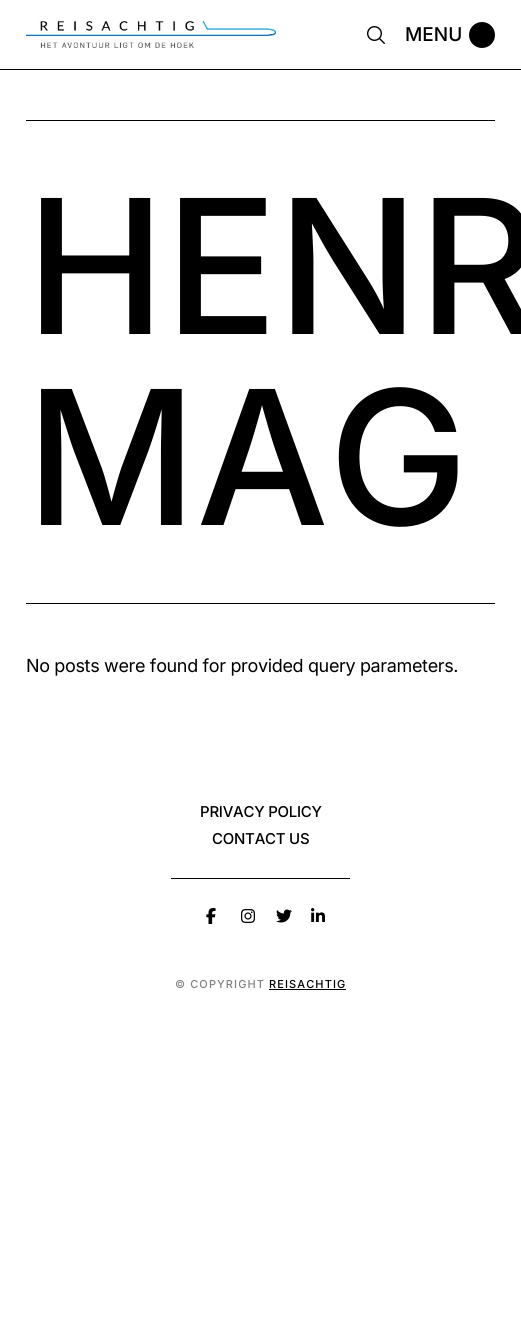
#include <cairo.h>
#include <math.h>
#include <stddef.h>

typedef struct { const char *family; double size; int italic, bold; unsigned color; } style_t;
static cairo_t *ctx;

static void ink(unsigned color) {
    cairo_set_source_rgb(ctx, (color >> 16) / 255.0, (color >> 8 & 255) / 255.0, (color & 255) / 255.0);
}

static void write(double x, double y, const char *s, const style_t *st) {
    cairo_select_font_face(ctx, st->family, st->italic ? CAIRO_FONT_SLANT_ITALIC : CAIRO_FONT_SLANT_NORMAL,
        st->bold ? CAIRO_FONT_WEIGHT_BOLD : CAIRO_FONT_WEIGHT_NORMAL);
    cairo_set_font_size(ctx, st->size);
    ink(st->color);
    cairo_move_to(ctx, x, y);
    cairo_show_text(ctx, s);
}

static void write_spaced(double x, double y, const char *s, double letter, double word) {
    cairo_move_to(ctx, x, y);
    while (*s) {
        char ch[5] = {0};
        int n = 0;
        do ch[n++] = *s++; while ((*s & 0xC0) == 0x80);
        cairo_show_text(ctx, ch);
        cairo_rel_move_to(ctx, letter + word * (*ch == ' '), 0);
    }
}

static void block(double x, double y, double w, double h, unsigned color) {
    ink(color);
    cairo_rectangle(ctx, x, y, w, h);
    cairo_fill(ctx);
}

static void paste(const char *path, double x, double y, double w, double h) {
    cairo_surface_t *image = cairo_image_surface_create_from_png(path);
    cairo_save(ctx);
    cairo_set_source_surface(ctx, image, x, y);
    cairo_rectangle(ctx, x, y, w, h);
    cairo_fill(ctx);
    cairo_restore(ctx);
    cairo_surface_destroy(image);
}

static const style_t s1 = {"Inter Medium", 19, 0, 0, 0x000000};

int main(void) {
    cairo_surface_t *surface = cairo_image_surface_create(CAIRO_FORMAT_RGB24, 521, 1344);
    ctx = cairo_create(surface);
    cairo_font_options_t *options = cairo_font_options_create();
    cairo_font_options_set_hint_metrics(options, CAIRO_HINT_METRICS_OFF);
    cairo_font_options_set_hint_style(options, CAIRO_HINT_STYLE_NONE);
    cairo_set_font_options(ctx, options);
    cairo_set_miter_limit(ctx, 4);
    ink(0xffffff);
    cairo_paint(ctx);
    block(0, 69, 521, 1, 0x000000);
    paste("pic1.png", 26, 21, 250, 27);
    paste("pic2.png", 367, 26, 18, 18);
    write(405, 41, "MENU", &s1);
    cairo_new_path(ctx);
    cairo_arc(ctx, 482, 35, 13, 0, 2 * M_PI);
    cairo_fill(ctx);
    block(26, 120, 469, 1, 0x000000);
    block(26, 603, 469, 1, 0x000000);
    cairo_set_font_size(ctx, 187);
    write_spaced(26, 334, "HENR", -0.35, 0);
    write_spaced(26, 525, "MAG", -0.35, 0);
    cairo_select_font_face(ctx, "Inter", CAIRO_FONT_SLANT_NORMAL, CAIRO_FONT_WEIGHT_NORMAL);
    cairo_set_font_size(ctx, 18);
    write_spaced(26, 672, "No posts were found for provided query parameters.", -0.35, 0);
    cairo_select_font_face(ctx, "Inter Medium", CAIRO_FONT_SLANT_NORMAL, CAIRO_FONT_WEIGHT_NORMAL);
    cairo_set_font_size(ctx, 15);
    write_spaced(200, 817, "PRIVACY POLICY", -0.25, 0);
    write_spaced(212, 844, "CONTACT US", -0.25, 0);
    block(171, 878, 179, 1, 0x000000);
    paste("pic3.png", 206, 908, 10, 16);
    paste("pic4.png", 241, 909, 14, 14);
    paste("pic5.png", 276, 909, 16, 14);
    paste("pic6.png", 311, 908, 14, 14);
    cairo_set_font_size(ctx, 11);
    ink(0x808080);
    write_spaced(175, 988, "© COPYRIGHT", 1.1, 0);
    ink(0x000000);
    write_spaced(269, 988, "REISACHTIG", 1.1, 0);
    block(269, 989, 77, 1, 0x000000);
    cairo_surface_write_to_png(surface, "screenshot.png");
    cairo_font_options_destroy(options);
    cairo_destroy(ctx);
    cairo_surface_destroy(surface);
    return 0;
}
